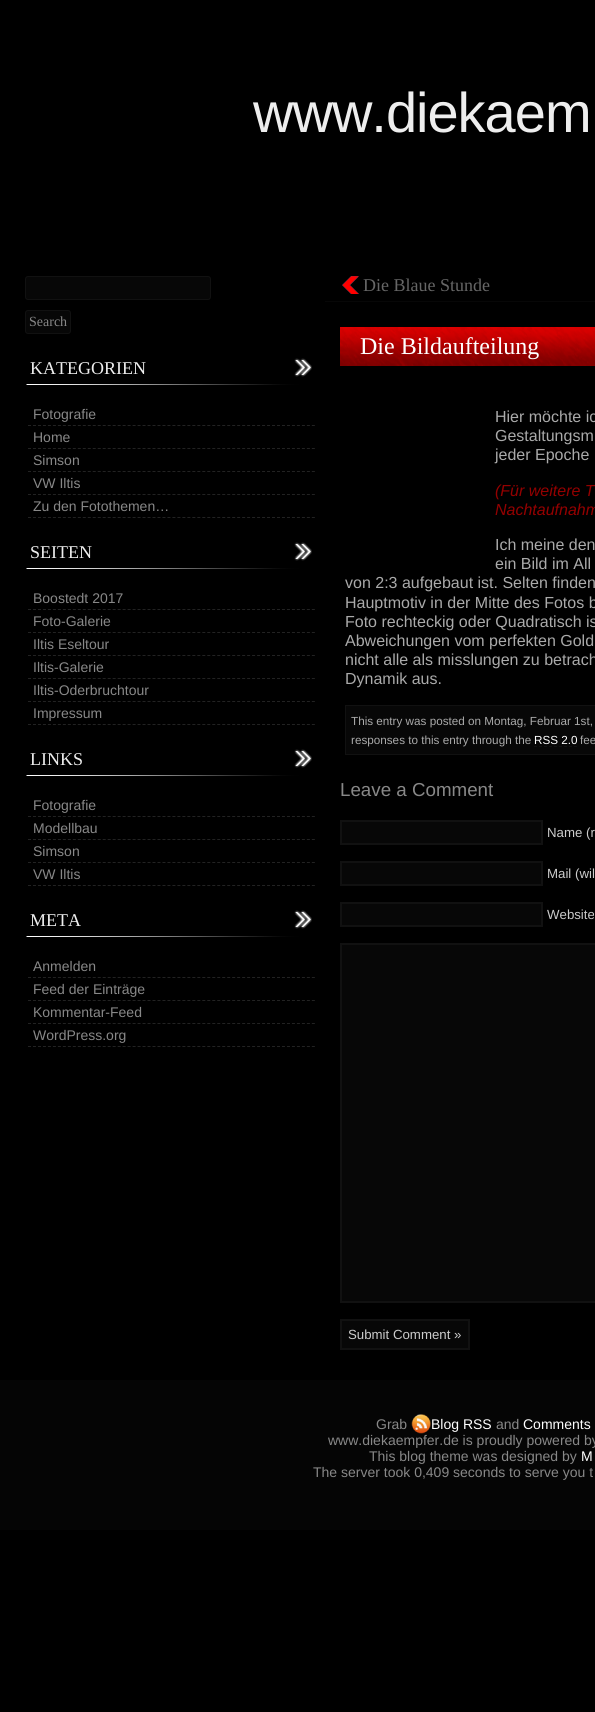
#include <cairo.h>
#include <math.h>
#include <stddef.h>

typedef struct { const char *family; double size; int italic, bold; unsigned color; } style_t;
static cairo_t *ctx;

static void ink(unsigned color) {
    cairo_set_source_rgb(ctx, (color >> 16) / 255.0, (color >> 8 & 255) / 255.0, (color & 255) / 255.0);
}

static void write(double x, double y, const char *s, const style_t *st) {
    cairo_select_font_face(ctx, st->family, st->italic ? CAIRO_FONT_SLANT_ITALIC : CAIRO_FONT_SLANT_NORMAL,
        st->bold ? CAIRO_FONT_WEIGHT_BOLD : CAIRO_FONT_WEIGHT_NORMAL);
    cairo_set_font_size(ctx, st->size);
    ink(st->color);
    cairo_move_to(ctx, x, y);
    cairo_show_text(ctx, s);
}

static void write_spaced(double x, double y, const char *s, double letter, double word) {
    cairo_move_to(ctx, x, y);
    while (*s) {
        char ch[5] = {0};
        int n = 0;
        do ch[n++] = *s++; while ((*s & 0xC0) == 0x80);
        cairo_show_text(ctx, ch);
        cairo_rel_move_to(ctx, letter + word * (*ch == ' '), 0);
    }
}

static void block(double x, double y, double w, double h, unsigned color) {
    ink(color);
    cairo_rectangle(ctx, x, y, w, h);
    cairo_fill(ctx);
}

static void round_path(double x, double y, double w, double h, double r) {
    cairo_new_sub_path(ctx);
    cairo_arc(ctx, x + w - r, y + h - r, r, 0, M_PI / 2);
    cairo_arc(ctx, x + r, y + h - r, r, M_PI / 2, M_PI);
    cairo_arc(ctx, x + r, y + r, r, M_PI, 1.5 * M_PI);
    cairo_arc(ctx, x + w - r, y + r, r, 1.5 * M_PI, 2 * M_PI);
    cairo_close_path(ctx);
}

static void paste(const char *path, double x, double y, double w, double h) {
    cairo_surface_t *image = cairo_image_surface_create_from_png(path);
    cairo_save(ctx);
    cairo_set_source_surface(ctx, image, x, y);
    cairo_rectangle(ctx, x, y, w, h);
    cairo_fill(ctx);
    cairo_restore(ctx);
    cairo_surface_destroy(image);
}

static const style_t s1 = {"Liberation Serif", 14, 0, 0, 0x888888};
static const style_t s2 = {"Liberation Serif", 18, 0, 0, 0xeeeeee};
static const style_t s3 = {"Liberation Sans", 14, 0, 0, 0x888888};
static const style_t s4 = {"Liberation Serif", 18, 0, 0, 0x666666};
static const style_t s5 = {"Liberation Serif", 24, 0, 0, 0xffffff};
static const style_t s6 = {"Liberation Sans", 16, 0, 0, 0xaaaaaa};
static const style_t s7 = {"Liberation Sans", 16, 1, 0, 0x940000};
static const style_t s8 = {"Liberation Sans", 11.7, 0, 0, 0xaaaaaa};
static const style_t s9 = {"Liberation Sans", 11.7, 0, 0, 0xffffff};
static const style_t s10 = {"Liberation Sans", 18.75, 0, 0, 0x888888};
static const style_t s11 = {"Liberation Sans", 13.25, 0, 0, 0xcccccc};
static const style_t s12 = {"Liberation Sans", 14, 0, 0, 0xffffff};

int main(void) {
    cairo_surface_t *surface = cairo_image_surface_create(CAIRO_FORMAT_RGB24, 595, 1712);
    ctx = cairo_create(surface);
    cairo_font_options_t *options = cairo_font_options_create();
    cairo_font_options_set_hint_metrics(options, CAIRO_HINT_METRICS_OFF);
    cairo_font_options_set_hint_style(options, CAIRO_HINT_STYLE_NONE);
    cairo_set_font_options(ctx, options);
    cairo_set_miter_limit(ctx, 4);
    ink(0x000000);
    cairo_paint(ctx);
    cairo_select_font_face(ctx, "Liberation Sans", CAIRO_FONT_SLANT_NORMAL, CAIRO_FONT_WEIGHT_NORMAL);
    cairo_set_font_size(ctx, 56);
    ink(0xeeeeee);
    write_spaced(253, 132, "www.diekaem", -1, 0);
    ink(0x070707);
    round_path(25.5, 276.5, 185, 23, 2.5);
    cairo_fill_preserve(ctx);
    ink(0x111111);
    cairo_set_line_width(ctx, 1);
    cairo_stroke(ctx);
    ink(0x070707);
    round_path(25.5, 310.5, 45, 23, 2.5);
    cairo_fill_preserve(ctx);
    ink(0x111111);
    cairo_stroke(ctx);
    write(29, 326, "Search", &s1);
    paste("pic1.png", 26, 358, 286, 27);
    write(30, 374, "KATEGORIEN", &s2);
    cairo_new_path(ctx);
    cairo_move_to(ctx, 28, 425.5);
    cairo_line_to(ctx, 315, 425.5);
    ink(0x222222);
    cairo_set_dash(ctx, (double[]){3, 1.98}, 2, 0);
    cairo_stroke(ctx);
    write(33, 419, "Fotografie", &s3);
    cairo_new_path(ctx);
    cairo_move_to(ctx, 28, 448.5);
    cairo_line_to(ctx, 315, 448.5);
    ink(0x222222);
    cairo_stroke(ctx);
    write(33, 442, "Home", &s3);
    cairo_new_path(ctx);
    cairo_move_to(ctx, 28, 471.5);
    cairo_line_to(ctx, 315, 471.5);
    ink(0x222222);
    cairo_stroke(ctx);
    write(33, 465, "Simson", &s3);
    cairo_new_path(ctx);
    cairo_move_to(ctx, 28, 494.5);
    cairo_line_to(ctx, 315, 494.5);
    ink(0x222222);
    cairo_stroke(ctx);
    write(33, 488, "VW Iltis", &s3);
    cairo_new_path(ctx);
    cairo_move_to(ctx, 28, 517.5);
    cairo_line_to(ctx, 315, 517.5);
    ink(0x222222);
    cairo_stroke(ctx);
    write(33, 511, "Zu den Fotothemen…", &s3);
    paste("pic1.png", 26, 542, 286, 27);
    write(30, 558, "SEITEN", &s2);
    cairo_new_path(ctx);
    cairo_move_to(ctx, 28, 609.5);
    cairo_line_to(ctx, 315, 609.5);
    ink(0x222222);
    cairo_stroke(ctx);
    write(33, 603, "Boostedt 2017", &s3);
    cairo_new_path(ctx);
    cairo_move_to(ctx, 28, 632.5);
    cairo_line_to(ctx, 315, 632.5);
    ink(0x222222);
    cairo_stroke(ctx);
    write(33, 626, "Foto-Galerie", &s3);
    cairo_new_path(ctx);
    cairo_move_to(ctx, 28, 655.5);
    cairo_line_to(ctx, 315, 655.5);
    ink(0x222222);
    cairo_stroke(ctx);
    write(33, 649, "Iltis Eseltour", &s3);
    cairo_new_path(ctx);
    cairo_move_to(ctx, 28, 678.5);
    cairo_line_to(ctx, 315, 678.5);
    ink(0x222222);
    cairo_stroke(ctx);
    write(33, 672, "Iltis-Galerie", &s3);
    cairo_new_path(ctx);
    cairo_move_to(ctx, 28, 701.5);
    cairo_line_to(ctx, 315, 701.5);
    ink(0x222222);
    cairo_stroke(ctx);
    write(33, 695, "Iltis-Oderbruchtour", &s3);
    cairo_new_path(ctx);
    cairo_move_to(ctx, 28, 724.5);
    cairo_line_to(ctx, 315, 724.5);
    ink(0x222222);
    cairo_stroke(ctx);
    write(33, 718, "Impressum", &s3);
    paste("pic1.png", 26, 749, 286, 27);
    write(30, 765, "LINKS", &s2);
    cairo_new_path(ctx);
    cairo_move_to(ctx, 28, 816.5);
    cairo_line_to(ctx, 315, 816.5);
    ink(0x222222);
    cairo_stroke(ctx);
    write(33, 810, "Fotografie", &s3);
    cairo_new_path(ctx);
    cairo_move_to(ctx, 28, 839.5);
    cairo_line_to(ctx, 315, 839.5);
    ink(0x222222);
    cairo_stroke(ctx);
    write(33, 833, "Modellbau", &s3);
    cairo_new_path(ctx);
    cairo_move_to(ctx, 28, 862.5);
    cairo_line_to(ctx, 315, 862.5);
    ink(0x222222);
    cairo_stroke(ctx);
    write(33, 856, "Simson", &s3);
    cairo_new_path(ctx);
    cairo_move_to(ctx, 28, 885.5);
    cairo_line_to(ctx, 315, 885.5);
    ink(0x222222);
    cairo_stroke(ctx);
    write(33, 879, "VW Iltis", &s3);
    paste("pic1.png", 26, 910, 286, 27);
    write(30, 926, "META", &s2);
    cairo_new_path(ctx);
    cairo_move_to(ctx, 28, 977.5);
    cairo_line_to(ctx, 315, 977.5);
    ink(0x222222);
    cairo_stroke(ctx);
    write(33, 971, "Anmelden", &s3);
    cairo_new_path(ctx);
    cairo_move_to(ctx, 28, 1000.5);
    cairo_line_to(ctx, 315, 1000.5);
    ink(0x222222);
    cairo_stroke(ctx);
    write(33, 994, "Feed der Einträge", &s3);
    cairo_new_path(ctx);
    cairo_move_to(ctx, 28, 1023.5);
    cairo_line_to(ctx, 315, 1023.5);
    ink(0x222222);
    cairo_stroke(ctx);
    write(33, 1017, "Kommentar-Feed", &s3);
    cairo_new_path(ctx);
    cairo_move_to(ctx, 28, 1046.5);
    cairo_line_to(ctx, 315, 1046.5);
    ink(0x222222);
    cairo_stroke(ctx);
    write(33, 1040, "WordPress.org", &s3);
    block(325, 301, 270, 1, 0x070707);
    paste("pic2.png", 342, 276, 17, 18);
    write(363, 291, "Die Blaue Stunde", &s4);
    paste("pic3.png", 340, 327, 255, 39);
    write(360, 354, "Die Bildaufteilung", &s5);
    write(495, 422, "Hier möchte ic", &s6);
    write(495, 441, "Gestaltungsm", &s6);
    write(495, 460, "jeder Epoche", &s6);
    write(495, 496, "(Für weitere T", &s7);
    write(495, 515, "Nachtaufnahm", &s7);
    write(495, 550, "Ich meine den", &s6);
    write(495, 569, "ein Bild im All", &s6);
    write(345, 588, "von 2:3 aufgebaut ist. Selten finden", &s6);
    write(345, 608, "Hauptmotiv in der Mitte des Fotos b", &s6);
    write(345, 627, "Foto rechteckig oder Quadratisch is", &s6);
    write(345, 646, "Abweichungen vom perfekten Gold", &s6);
    write(345, 665, "nicht alle als misslungen zu betrach", &s6);
    write(345, 684, "Dynamik aus.", &s6);
    ink(0x070707);
    cairo_rectangle(ctx, 345.5, 705.5, 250, 49);
    cairo_fill_preserve(ctx);
    ink(0x111111);
    cairo_set_dash(ctx, NULL, 0, 0);
    cairo_stroke(ctx);
    write(351, 725, "This entry was posted on Montag, Februar 1st,", &s8);
    write(351, 744, "responses to this entry through the", &s8);
    write(534, 744, "RSS 2.0", &s9);
    cairo_new_path(ctx);
    cairo_move_to(ctx, 534, 746.5);
    cairo_line_to(ctx, 577, 746.5);
    ink(0x111111);
    cairo_set_dash(ctx, (double[]){3, 2}, 2, 0);
    cairo_stroke(ctx);
    write(580, 744, "fee", &s8);
    write(340, 796, "Leave a Comment", &s10);
    ink(0x070707);
    cairo_rectangle(ctx, 341, 821, 201, 23);
    cairo_fill_preserve(ctx);
    ink(0x111111);
    cairo_set_line_width(ctx, 2);
    cairo_set_dash(ctx, NULL, 0, 0);
    cairo_stroke(ctx);
    write(547, 837, "Name (r", &s11);
    ink(0x070707);
    cairo_rectangle(ctx, 341, 862, 201, 23);
    cairo_fill_preserve(ctx);
    ink(0x111111);
    cairo_stroke(ctx);
    write(547, 878, "Mail (wil", &s11);
    ink(0x070707);
    cairo_rectangle(ctx, 341, 903, 201, 23);
    cairo_fill_preserve(ctx);
    ink(0x111111);
    cairo_stroke(ctx);
    write(547, 919, "Website", &s11);
    ink(0x070707);
    cairo_rectangle(ctx, 341, 944, 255, 358);
    cairo_fill_preserve(ctx);
    ink(0x111111);
    cairo_stroke(ctx);
    ink(0x070707);
    cairo_rectangle(ctx, 341, 1320, 128, 29);
    cairo_fill_preserve(ctx);
    ink(0x111111);
    cairo_stroke(ctx);
    write(348, 1339, "Submit Comment »", &s11);
    block(0, 1380, 595, 150, 0x050505);
    write(376, 1429, "Grab", &s3);
    paste("pic4.png", 411, 1414, 20, 20);
    write(431, 1429, "Blog RSS", &s12);
    write(496, 1429, "and", &s3);
    write(523, 1429, "Comments", &s12);
    write(328, 1445, "www.diekaempfer.de is proudly powered by", &s3);
    write(369, 1461, "This blog theme was designed by", &s3);
    write(581, 1461, "M", &s12);
    write(313, 1477, "The server took 0,409 seconds to serve you t", &s3);
    cairo_surface_write_to_png(surface, "screenshot.png");
    cairo_font_options_destroy(options);
    cairo_destroy(ctx);
    cairo_surface_destroy(surface);
    return 0;
}
